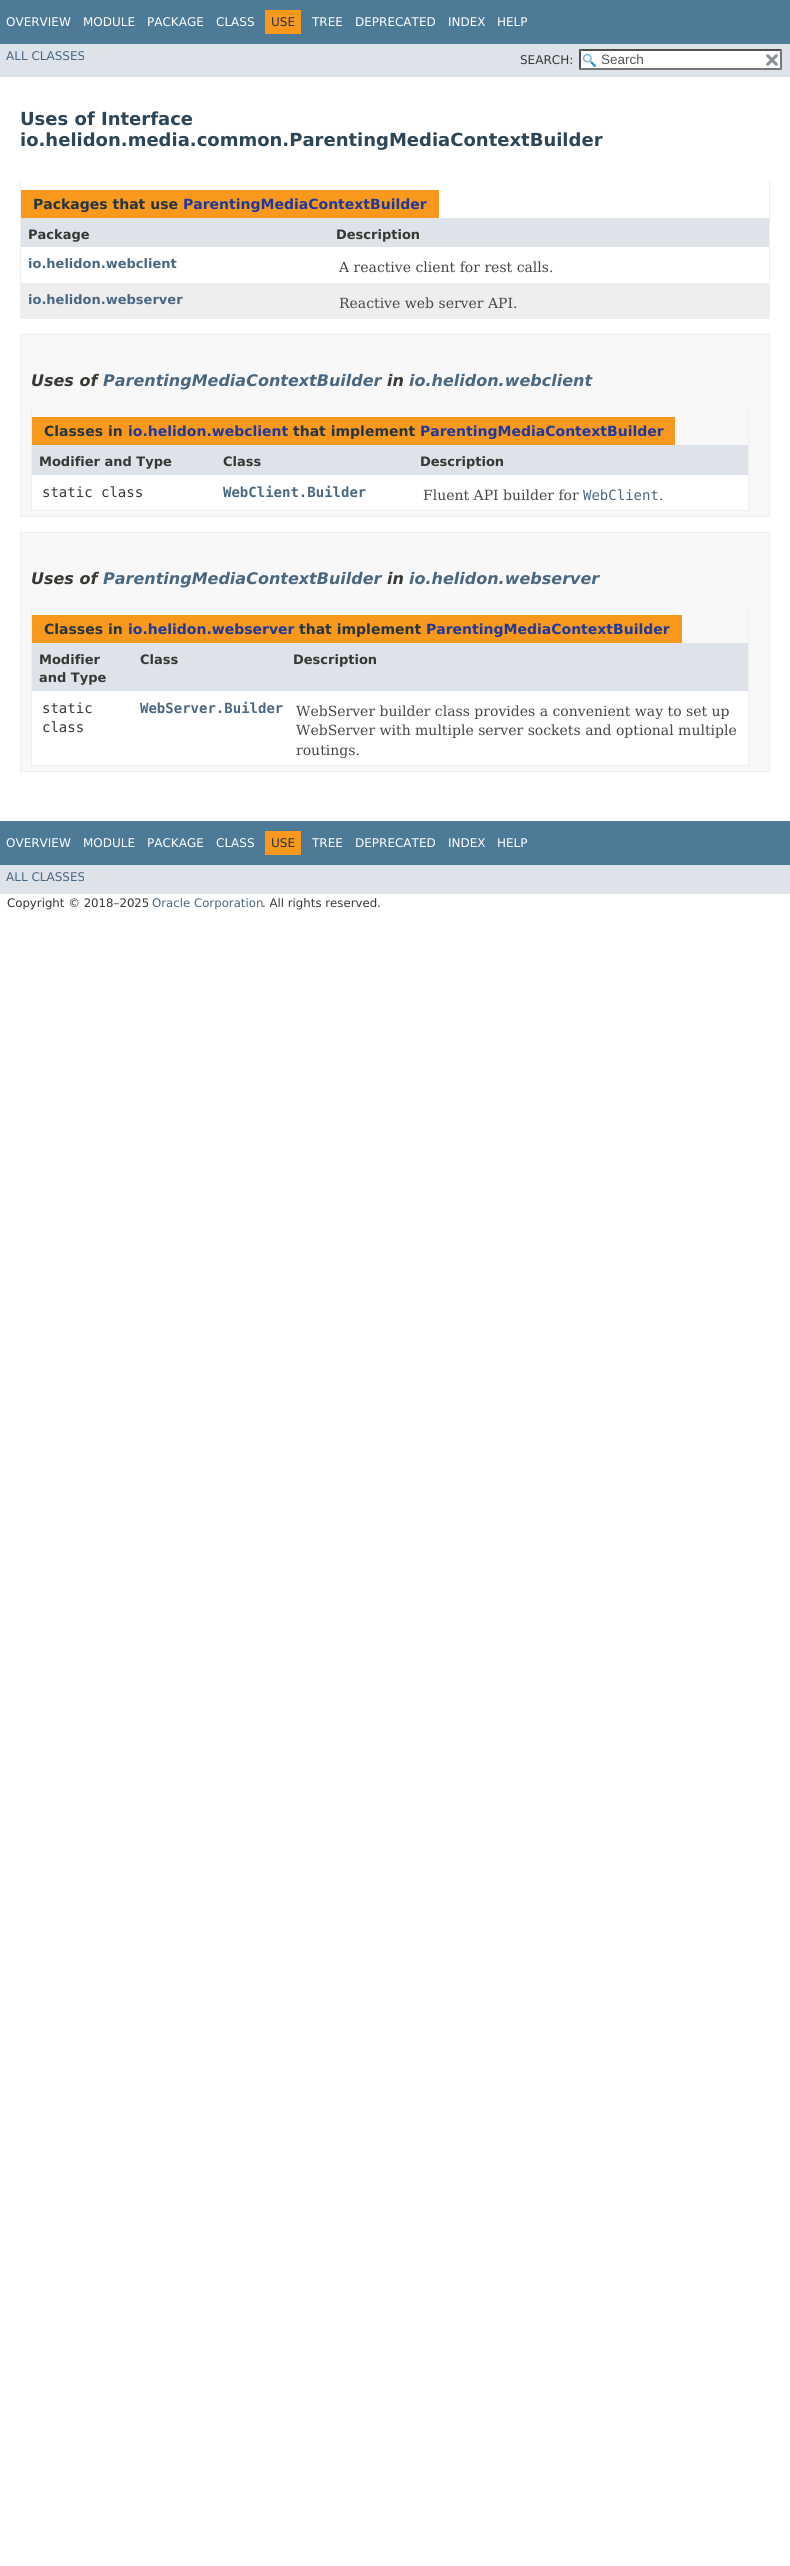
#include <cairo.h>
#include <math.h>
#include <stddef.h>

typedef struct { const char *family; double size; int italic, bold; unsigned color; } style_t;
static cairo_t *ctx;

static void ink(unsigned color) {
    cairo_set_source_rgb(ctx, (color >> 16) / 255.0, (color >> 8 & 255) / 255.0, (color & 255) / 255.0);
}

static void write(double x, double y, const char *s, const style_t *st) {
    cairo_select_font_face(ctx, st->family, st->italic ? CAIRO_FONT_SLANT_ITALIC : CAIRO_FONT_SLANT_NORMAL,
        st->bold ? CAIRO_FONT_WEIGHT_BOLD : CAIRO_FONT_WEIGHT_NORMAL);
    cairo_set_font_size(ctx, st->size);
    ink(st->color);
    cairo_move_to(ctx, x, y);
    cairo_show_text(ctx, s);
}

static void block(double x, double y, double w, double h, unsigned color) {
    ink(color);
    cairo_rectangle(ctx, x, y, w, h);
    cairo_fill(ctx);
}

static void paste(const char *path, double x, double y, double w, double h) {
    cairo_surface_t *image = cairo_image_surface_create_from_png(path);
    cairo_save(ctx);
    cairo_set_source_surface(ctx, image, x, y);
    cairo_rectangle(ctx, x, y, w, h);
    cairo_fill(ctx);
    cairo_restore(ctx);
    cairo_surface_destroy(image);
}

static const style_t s1 = {"DejaVu Sans", 12, 0, 0, 0xffffff};
static const style_t s2 = {"DejaVu Sans", 12, 0, 0, 0x253441};
static const style_t s3 = {"DejaVu Sans", 12, 0, 0, 0x4a6782};
static const style_t s4 = {"DejaVu Sans", 12, 0, 0, 0x353833};
static const style_t s5 = {"Liberation Sans", 13.5, 0, 0, 0x545454};
static const style_t s6 = {"DejaVu Sans", 18, 0, 1, 0x2c4557};
static const style_t s7 = {"DejaVu Sans", 14, 0, 1, 0x253441};
static const style_t s8 = {"DejaVu Sans", 14, 0, 1, 0x1f389c};
static const style_t s9 = {"DejaVu Sans", 13, 0, 1, 0x353833};
static const style_t s10 = {"DejaVu Sans", 13, 0, 1, 0x4a6782};
static const style_t s11 = {"DejaVu Serif", 14, 0, 0, 0x474747};
static const style_t s12 = {"DejaVu Sans", 16, 1, 1, 0x353833};
static const style_t s13 = {"DejaVu Sans", 16, 1, 1, 0x4a6782};
static const style_t s14 = {"DejaVu Sans Mono", 14, 0, 0, 0x353833};
static const style_t s15 = {"DejaVu Sans Mono", 14, 0, 1, 0x4a6782};
static const style_t s16 = {"DejaVu Sans Mono", 14, 0, 0, 0x4a6782};
static const style_t s17 = {"DejaVu Sans", 11.75, 0, 0, 0x353833};
static const style_t s18 = {"DejaVu Sans", 11.75, 0, 0, 0x4a6782};

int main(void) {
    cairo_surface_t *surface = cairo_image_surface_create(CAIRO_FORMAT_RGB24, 790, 2566);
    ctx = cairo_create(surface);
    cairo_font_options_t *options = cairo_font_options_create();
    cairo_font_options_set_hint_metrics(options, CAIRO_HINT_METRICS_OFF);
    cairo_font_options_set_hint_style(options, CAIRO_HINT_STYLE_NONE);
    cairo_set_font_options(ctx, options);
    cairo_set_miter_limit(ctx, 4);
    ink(0xffffff);
    cairo_paint(ctx);
    block(0, 0, 790, 44, 0x4d7a97);
    write(6, 26, "OVERVIEW", &s1);
    write(83, 26, "MODULE", &s1);
    write(147, 26, "PACKAGE", &s1);
    write(216, 26, "CLASS", &s1);
    block(265, 10, 36, 24, 0xf8981d);
    write(271, 26, "USE", &s2);
    write(312, 26, "TREE", &s1);
    write(355, 26, "DEPRECATED", &s1);
    write(448, 26, "INDEX", &s1);
    write(497, 26, "HELP", &s1);
    block(0, 44, 790, 33, 0xdee3e9);
    write(6, 60, "ALL CLASSES", &s3);
    write(520, 64, "SEARCH:", &s4);
    block(579, 49, 203, 21, 0xffffff);
    paste("pic1.png", 583, 54, 13, 13);
    ink(0x4f4f4f);
    cairo_new_path(ctx);
    cairo_move_to(ctx, 579, 49);
    cairo_line_to(ctx, 782, 49);
    cairo_line_to(ctx, 780, 51);
    cairo_line_to(ctx, 581, 51);
    cairo_close_path(ctx);
    cairo_fill(ctx);
    ink(0x767676);
    cairo_new_path(ctx);
    cairo_move_to(ctx, 782, 49);
    cairo_line_to(ctx, 782, 70);
    cairo_line_to(ctx, 780, 68);
    cairo_line_to(ctx, 780, 51);
    cairo_close_path(ctx);
    cairo_fill(ctx);
    cairo_new_path(ctx);
    cairo_move_to(ctx, 782, 70);
    cairo_line_to(ctx, 579, 70);
    cairo_line_to(ctx, 581, 68);
    cairo_line_to(ctx, 780, 68);
    cairo_close_path(ctx);
    cairo_fill(ctx);
    ink(0x4f4f4f);
    cairo_new_path(ctx);
    cairo_move_to(ctx, 579, 70);
    cairo_line_to(ctx, 579, 49);
    cairo_line_to(ctx, 581, 51);
    cairo_line_to(ctx, 581, 68);
    cairo_close_path(ctx);
    cairo_fill(ctx);
    write(601, 64, "Search", &s5);
    paste("pic2.png", 765, 54, 14, 12);
    write(20, 125, "Uses of Interface", &s6);
    write(20, 146, "io.helidon.media.common.ParentingMediaContextBuilder", &s6);
    block(769, 180, 1, 139, 0xeeeeee);
    block(20, 318, 750, 1, 0xeeeeee);
    block(20, 180, 1, 139, 0xeeeeee);
    block(21, 190, 418, 28, 0xf8981d);
    write(33, 209, "Packages that use", &s7);
    write(183, 209, "ParentingMediaContextBuilder", &s8);
    block(21, 218, 748, 29, 0xdee3e9);
    write(28, 239, "Package", &s9);
    write(336, 239, "Description", &s9);
    write(28, 268, "io.helidon.webclient", &s10);
    write(339, 272, "A reactive client for rest calls.", &s11);
    block(21, 283, 748, 35, 0xeeeeef);
    write(28, 304, "io.helidon.webserver", &s10);
    write(339, 308, "Reactive web server API.", &s11);
    ink(0xf8f8f8);
    cairo_rectangle(ctx, 20.5, 334.5, 749, 182);
    cairo_fill_preserve(ctx);
    ink(0xededed);
    cairo_set_line_width(ctx, 1);
    cairo_stroke(ctx);
    write(31, 386, "Uses of", &s12);
    write(103, 386, "ParentingMediaContextBuilder", &s13);
    write(387, 386, "in", &s12);
    write(409, 386, "io.helidon.webclient", &s13);
    block(748, 407, 1, 104, 0xeeeeee);
    block(31, 510, 718, 1, 0xeeeeee);
    block(31, 407, 1, 104, 0xeeeeee);
    block(32, 417, 643, 28, 0xf8981d);
    write(44, 436, "Classes in", &s7);
    write(128, 436, "io.helidon.webclient", &s8);
    write(293, 436, "that implement", &s7);
    write(420, 436, "ParentingMediaContextBuilder", &s8);
    block(32, 445, 716, 30, 0xdee3e9);
    write(39, 466, "Modifier and Type", &s9);
    write(223, 466, "Class", &s9);
    write(420, 466, "Description", &s9);
    block(32, 475, 716, 35, 0xffffff);
    write(42, 497, "static class", &s14);
    write(223, 497, "WebClient.Builder", &s15);
    write(423, 500, "Fluent API builder for", &s11);
    write(583, 500, "WebClient", &s16);
    write(659, 500, ".", &s11);
    ink(0xf8f8f8);
    cairo_rectangle(ctx, 20.5, 532.5, 749, 239);
    cairo_fill_preserve(ctx);
    ink(0xededed);
    cairo_stroke(ctx);
    write(31, 584, "Uses of", &s12);
    write(103, 584, "ParentingMediaContextBuilder", &s13);
    write(387, 584, "in", &s12);
    write(409, 584, "io.helidon.webserver", &s13);
    block(748, 605, 1, 161, 0xeeeeee);
    block(31, 765, 718, 1, 0xeeeeee);
    block(31, 605, 1, 161, 0xeeeeee);
    block(32, 615, 650, 28, 0xf8981d);
    write(44, 634, "Classes in", &s7);
    write(128, 634, "io.helidon.webserver", &s8);
    write(299, 634, "that implement", &s7);
    write(426, 634, "ParentingMediaContextBuilder", &s8);
    block(32, 643, 716, 48, 0xdee3e9);
    write(39, 664, "Modifier", &s9);
    write(39, 682, "and Type", &s9);
    write(140, 664, "Class", &s9);
    write(293, 664, "Description", &s9);
    block(32, 691, 716, 74, 0xffffff);
    write(42, 713, "static", &s14);
    write(42, 732, "class", &s14);
    write(140, 713, "WebServer.Builder", &s15);
    write(296, 716, "WebServer builder class provides a convenient way to set up", &s11);
    write(296, 735, "WebServer with multiple server sockets and optional multiple", &s11);
    write(296, 755, "routings.", &s11);
    block(0, 821, 790, 44, 0x4d7a97);
    write(6, 847, "OVERVIEW", &s1);
    write(83, 847, "MODULE", &s1);
    write(147, 847, "PACKAGE", &s1);
    write(216, 847, "CLASS", &s1);
    block(265, 831, 36, 24, 0xf8981d);
    write(271, 847, "USE", &s2);
    write(312, 847, "TREE", &s1);
    write(355, 847, "DEPRECATED", &s1);
    write(448, 847, "INDEX", &s1);
    write(497, 847, "HELP", &s1);
    block(0, 865, 790, 29, 0xdee3e9);
    write(6, 881, "ALL CLASSES", &s3);
    write(7, 907, "Copyright © 2018–2025", &s17);
    write(152, 907, "Oracle Corporation", &s18);
    write(262, 907, ". All rights reserved.", &s17);
    cairo_surface_write_to_png(surface, "screenshot.png");
    cairo_font_options_destroy(options);
    cairo_destroy(ctx);
    cairo_surface_destroy(surface);
    return 0;
}
